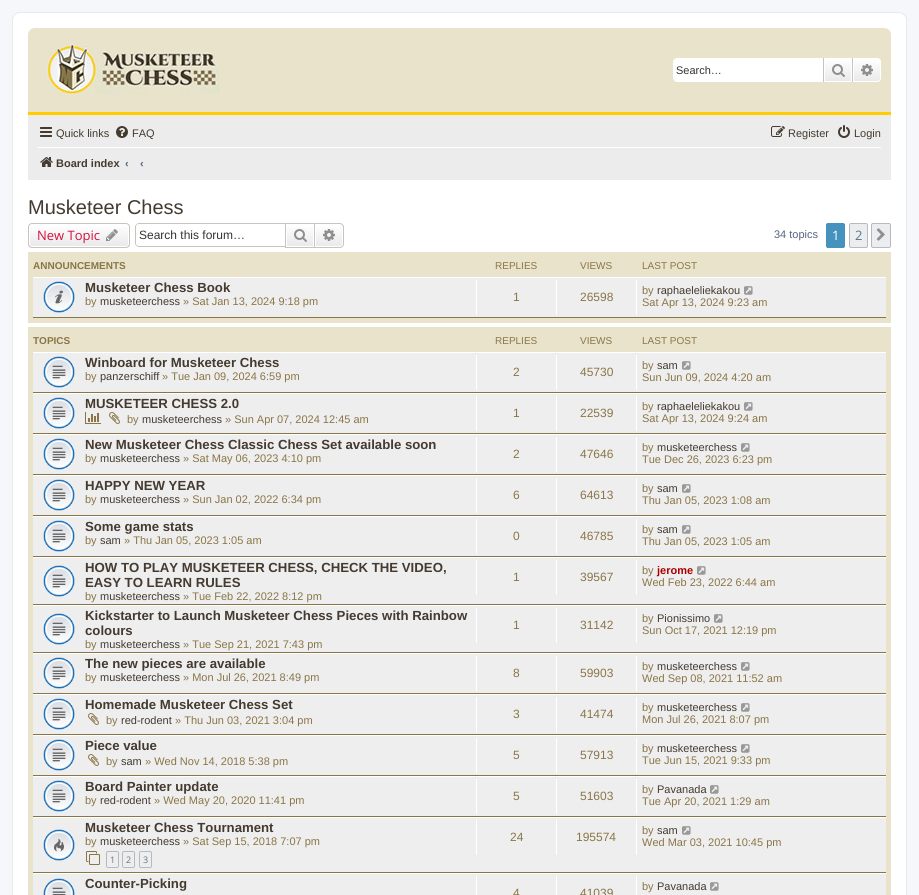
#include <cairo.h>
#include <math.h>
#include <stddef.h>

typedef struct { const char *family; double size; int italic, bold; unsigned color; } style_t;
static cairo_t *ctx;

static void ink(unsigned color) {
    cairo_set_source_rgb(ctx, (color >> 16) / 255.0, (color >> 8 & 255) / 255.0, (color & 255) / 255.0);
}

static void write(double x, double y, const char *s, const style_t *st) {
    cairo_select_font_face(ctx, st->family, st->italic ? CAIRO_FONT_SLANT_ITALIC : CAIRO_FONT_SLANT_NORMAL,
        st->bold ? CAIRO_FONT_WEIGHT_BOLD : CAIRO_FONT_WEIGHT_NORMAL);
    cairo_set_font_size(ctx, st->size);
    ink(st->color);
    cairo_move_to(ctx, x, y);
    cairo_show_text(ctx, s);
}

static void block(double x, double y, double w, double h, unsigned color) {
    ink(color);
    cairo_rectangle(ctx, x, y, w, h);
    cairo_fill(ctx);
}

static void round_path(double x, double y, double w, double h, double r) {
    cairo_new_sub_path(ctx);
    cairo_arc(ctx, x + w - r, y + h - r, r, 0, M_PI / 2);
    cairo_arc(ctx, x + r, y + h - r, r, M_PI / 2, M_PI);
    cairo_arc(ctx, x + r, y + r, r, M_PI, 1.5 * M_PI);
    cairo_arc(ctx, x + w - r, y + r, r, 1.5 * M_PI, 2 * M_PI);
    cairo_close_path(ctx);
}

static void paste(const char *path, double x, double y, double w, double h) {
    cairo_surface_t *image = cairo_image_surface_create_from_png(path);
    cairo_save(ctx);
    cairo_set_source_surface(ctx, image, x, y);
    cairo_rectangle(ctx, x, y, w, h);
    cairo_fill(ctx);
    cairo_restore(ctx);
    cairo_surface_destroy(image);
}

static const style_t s1 = {"Liberation Sans", 11, 0, 0, 0x333333};
static const style_t s2 = {"Liberation Sans", 11, 0, 0, 0x443a30};
static const style_t s3 = {"Liberation Sans", 11, 0, 1, 0x443a30};
static const style_t s4 = {"Liberation Sans", 11, 0, 1, 0x536482};
static const style_t s5 = {"Liberation Sans", 20, 0, 0, 0x443a30};
static const style_t s6 = {"Open Sans", 13, 0, 0, 0xd31141};
static const style_t s7 = {"Liberation Sans", 12, 0, 0, 0x333333};
static const style_t s8 = {"Liberation Sans", 11, 0, 0, 0x536482};
static const style_t s9 = {"Open Sans", 13, 0, 0, 0xffffff};
static const style_t s10 = {"Open Sans", 13, 0, 0, 0x5c758c};
static const style_t s11 = {"Liberation Sans", 10, 0, 1, 0x8a7547};
static const style_t s12 = {"Liberation Sans", 10, 0, 0, 0x8a7547};
static const style_t s13 = {"Liberation Sans", 13.2, 0, 1, 0x443a30};
static const style_t s14 = {"Liberation Sans", 11, 0, 0, 0x8a7547};
static const style_t s15 = {"Liberation Sans", 12, 0, 0, 0x8a7547};
static const style_t s16 = {"Liberation Sans", 11, 0, 1, 0xaa0000};
static const style_t s17 = {"Open Sans", 9, 0, 0, 0x5c758c};

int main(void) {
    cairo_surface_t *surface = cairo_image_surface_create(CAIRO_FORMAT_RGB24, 919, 895);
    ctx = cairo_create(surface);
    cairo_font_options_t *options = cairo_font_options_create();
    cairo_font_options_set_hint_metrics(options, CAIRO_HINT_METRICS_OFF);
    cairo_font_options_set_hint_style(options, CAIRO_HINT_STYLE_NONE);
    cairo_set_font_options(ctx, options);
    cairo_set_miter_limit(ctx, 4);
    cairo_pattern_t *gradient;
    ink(0xf5f7fa);
    cairo_paint(ctx);
    ink(0xffffff);
    round_path(12.5, 12.5, 894, 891, 7.5);
    cairo_fill_preserve(ctx);
    ink(0xe6e9ed);
    cairo_set_line_width(ctx, 1);
    cairo_stroke(ctx);
    ink(0xe9e3cb);
    cairo_new_path(ctx);
    cairo_move_to(ctx, 35, 28);
    cairo_line_to(ctx, 884, 28);
    cairo_curve_to(ctx, 888, 28, 891, 31, 891, 35);
    cairo_line_to(ctx, 891, 115);
    cairo_line_to(ctx, 28, 115);
    cairo_line_to(ctx, 28, 35);
    cairo_curve_to(ctx, 28, 31, 31, 28, 35, 28);
    cairo_close_path(ctx);
    cairo_fill(ctx);
    block(28, 112, 863, 3, 0xffcc00);
    paste("pic1.png", 43, 43, 180, 52);
    ink(0xffffff);
    cairo_new_path(ctx);
    cairo_move_to(ctx, 677, 58);
    cairo_line_to(ctx, 823, 58);
    cairo_line_to(ctx, 823, 82);
    cairo_line_to(ctx, 677, 82);
    cairo_curve_to(ctx, 675, 82, 673, 80, 673, 78);
    cairo_line_to(ctx, 673, 62);
    cairo_curve_to(ctx, 673, 60, 675, 58, 677, 58);
    cairo_close_path(ctx);
    cairo_fill(ctx);
    write(676, 74, "Search…", &s1);
    gradient = cairo_pattern_create_linear(838, 58, 838, 82);
    cairo_pattern_add_color_stop_rgba(gradient, 0, 1, 1, 1, 1);
    cairo_pattern_add_color_stop_rgba(gradient, 1, 0.914, 0.914, 0.914, 1);
    cairo_set_source(ctx, gradient);
    cairo_pattern_destroy(gradient);
    cairo_rectangle(ctx, 825, 59, 26, 22);
    cairo_fill(ctx);
    cairo_rectangle(ctx, 824.5, 58.5, 27, 23);
    ink(0xffffff);
    cairo_stroke(ctx);
    block(852, 58, 1, 24, 0xc7c3bf);
    block(823, 58, 1, 24, 0xc7c3bf);
    paste("pic2.png", 832, 64, 13, 13);
    gradient = cairo_pattern_create_linear(867, 58, 867, 82);
    cairo_pattern_add_color_stop_rgba(gradient, 0, 1, 1, 1, 1);
    cairo_pattern_add_color_stop_rgba(gradient, 1, 0.914, 0.914, 0.914, 1);
    cairo_set_source(ctx, gradient);
    cairo_pattern_destroy(gradient);
    cairo_new_path(ctx);
    cairo_move_to(ctx, 853.5, 58.5);
    cairo_line_to(ctx, 877, 58.5);
    cairo_curve_to(ctx, 879, 58.5, 880.5, 60, 880.5, 62);
    cairo_line_to(ctx, 880.5, 78);
    cairo_curve_to(ctx, 880.5, 80, 879, 81.5, 877, 81.5);
    cairo_line_to(ctx, 853.5, 81.5);
    cairo_close_path(ctx);
    cairo_fill_preserve(ctx);
    ink(0xffffff);
    cairo_stroke(ctx);
    paste("pic3.png", 861, 64, 12, 12);
    block(28, 115, 863, 65, 0xececec);
    paste("pic4.png", 40, 127, 12, 10);
    write(56, 137, "Quick links", &s2);
    paste("pic5.png", 116, 126, 12, 12);
    write(132, 137, "FAQ", &s2);
    paste("pic6.png", 771, 126, 14, 11);
    write(788, 137, "Register", &s2);
    paste("pic7.png", 838, 125, 12, 13);
    write(854, 137, "Login", &s2);
    block(38, 147, 843, 1, 0xffffff);
    paste("pic8.png", 40, 157, 13, 10);
    write(56, 167, "Board index", &s3);
    write(125, 167, "‹", &s4);
    write(140, 167, "‹", &s4);
    write(28, 214, "Musketeer Chess", &s5);
    cairo_save(ctx);
    round_path(28, 223, 102, 25, 4);
    cairo_clip(ctx);
    gradient = cairo_pattern_create_linear(79, 224, 79, 247);
    cairo_pattern_add_color_stop_rgba(gradient, 0, 1, 1, 1, 1);
    cairo_pattern_add_color_stop_rgba(gradient, 1, 0.914, 0.914, 0.914, 1);
    cairo_set_source(ctx, gradient);
    cairo_pattern_destroy(gradient);
    cairo_rectangle(ctx, 28, 224, 102, 23);
    cairo_fill(ctx);
    cairo_restore(ctx);
    round_path(29.5, 224.5, 99, 22, 2.5);
    ink(0xffffff);
    cairo_stroke(ctx);
    round_path(28.5, 223.5, 101, 24, 3.5);
    ink(0xc7c3bf);
    cairo_stroke(ctx);
    write(37, 240, "New Topic", &s6);
    paste("pic9.png", 106, 229, 12, 12);
    ink(0xc7c3bf);
    cairo_set_fill_rule(ctx, CAIRO_FILL_RULE_EVEN_ODD);
    cairo_new_path(ctx);
    cairo_move_to(ctx, 139, 223);
    cairo_line_to(ctx, 285, 223);
    cairo_line_to(ctx, 285, 247);
    cairo_line_to(ctx, 139, 247);
    cairo_curve_to(ctx, 137, 247, 135, 245, 135, 243);
    cairo_line_to(ctx, 135, 227);
    cairo_curve_to(ctx, 135, 225, 137, 223, 139, 223);
    cairo_close_path(ctx);
    cairo_move_to(ctx, 139, 224);
    cairo_line_to(ctx, 285, 224);
    cairo_line_to(ctx, 285, 246);
    cairo_line_to(ctx, 139, 246);
    cairo_curve_to(ctx, 137, 246, 136, 245, 136, 243);
    cairo_line_to(ctx, 136, 227);
    cairo_curve_to(ctx, 136, 225, 137, 224, 139, 224);
    cairo_close_path(ctx);
    cairo_fill(ctx);
    write(139, 239, "Search this forum…", &s7);
    gradient = cairo_pattern_create_linear(300, 224, 300, 247);
    cairo_pattern_add_color_stop_rgba(gradient, 0, 1, 1, 1, 1);
    cairo_pattern_add_color_stop_rgba(gradient, 1, 0.914, 0.914, 0.914, 1);
    cairo_set_source(ctx, gradient);
    cairo_pattern_destroy(gradient);
    cairo_rectangle(ctx, 287, 227, 26, 19);
    cairo_fill(ctx);
    cairo_rectangle(ctx, 285.5, 223.5, 29, 24);
    ink(0xc7c3bf);
    cairo_stroke(ctx);
    paste("pic10.png", 294, 229, 13, 13);
    gradient = cairo_pattern_create_linear(329, 224, 329, 247);
    cairo_pattern_add_color_stop_rgba(gradient, 0, 1, 1, 1, 1);
    cairo_pattern_add_color_stop_rgba(gradient, 1, 0.914, 0.914, 0.914, 1);
    cairo_set_source(ctx, gradient);
    cairo_pattern_destroy(gradient);
    cairo_new_path(ctx);
    cairo_move_to(ctx, 315.5, 224.5);
    cairo_line_to(ctx, 340, 224.5);
    cairo_curve_to(ctx, 341.5, 224.5, 342.5, 225.5, 342.5, 227);
    cairo_line_to(ctx, 342.5, 244);
    cairo_curve_to(ctx, 342.5, 245.5, 341.5, 246.5, 340, 246.5);
    cairo_line_to(ctx, 315.5, 246.5);
    cairo_close_path(ctx);
    cairo_fill_preserve(ctx);
    ink(0xffffff);
    cairo_stroke(ctx);
    ink(0xc7c3bf);
    cairo_new_path(ctx);
    cairo_move_to(ctx, 315, 223);
    cairo_line_to(ctx, 340, 223);
    cairo_curve_to(ctx, 342, 223, 344, 225, 344, 227);
    cairo_line_to(ctx, 344, 244);
    cairo_curve_to(ctx, 344, 246, 342, 248, 340, 248);
    cairo_line_to(ctx, 315, 248);
    cairo_close_path(ctx);
    cairo_move_to(ctx, 315, 224);
    cairo_line_to(ctx, 340, 224);
    cairo_curve_to(ctx, 341.5, 224, 343, 225.5, 343, 227);
    cairo_line_to(ctx, 343, 244);
    cairo_curve_to(ctx, 343, 245.5, 341.5, 247, 340, 247);
    cairo_line_to(ctx, 315, 247);
    cairo_close_path(ctx);
    cairo_fill(ctx);
    paste("pic11.png", 323, 229, 12, 12);
    write(774, 238, "34 topics", &s8);
    ink(0x4692bf);
    round_path(826.5, 223.5, 18, 24, 1.5);
    cairo_fill_preserve(ctx);
    cairo_stroke(ctx);
    write(832, 240, "1", &s9);
    ink(0xecedee);
    round_path(849.5, 223.5, 18, 24, 1.5);
    cairo_fill_preserve(ctx);
    ink(0xb4bac0);
    cairo_stroke(ctx);
    write(855, 240, "2", &s10);
    ink(0xecedee);
    round_path(871.5, 223.5, 19, 24, 1.5);
    cairo_fill_preserve(ctx);
    ink(0xb4bac0);
    cairo_stroke(ctx);
    paste("pic12.png", 876, 228, 9, 13);
    block(28, 252, 863, 71, 0xe9e3cb);
    write(33, 269, "ANNOUNCEMENTS", &s11);
    write(495, 269, "REPLIES", &s12);
    write(580, 269, "VIEWS", &s12);
    write(642, 269, "LAST POST", &s12);
    block(33, 278, 853, 39, 0xeeeeee);
    block(33, 277, 853, 1, 0xffffff);
    block(33, 317, 853, 1, 0x8a7547);
    paste("pic13.png", 43, 281, 32, 32);
    write(85, 292, "Musketeer Chess Book", &s13);
    write(85, 305, "by", &s14);
    write(100, 305, "musketeerchess", &s2);
    write(183, 305, "» Sat Jan 13, 2024 9:18 pm", &s14);
    block(476, 280, 1, 35, 0xffffff);
    write(513, 301, "1", &s15);
    block(556, 280, 1, 35, 0xffffff);
    write(580, 301, "26598", &s15);
    block(636, 280, 1, 35, 0xffffff);
    write(642, 294, "by", &s14);
    write(657, 294, "raphaeleliekakou", &s2);
    paste("pic14.png", 744, 286, 9, 9);
    write(642, 306, "Sat Apr 13, 2024 9:23 am", &s14);
    block(28, 327, 863, 568, 0xe9e3cb);
    write(33, 344, "TOPICS", &s11);
    write(495, 344, "REPLIES", &s12);
    write(580, 344, "VIEWS", &s12);
    write(642, 344, "LAST POST", &s12);
    block(33, 353, 853, 39, 0xeeeeee);
    block(33, 352, 853, 1, 0xffffff);
    block(33, 392, 853, 1, 0x8a7547);
    paste("pic15.png", 43, 356, 32, 32);
    write(85, 367, "Winboard for Musketeer Chess", &s13);
    write(85, 380, "by", &s14);
    write(100, 380, "panzerschiff", &s2);
    write(162, 380, "» Tue Jan 09, 2024 6:59 pm", &s14);
    block(476, 355, 1, 35, 0xffffff);
    write(513, 376, "2", &s15);
    block(556, 355, 1, 35, 0xffffff);
    write(580, 376, "45730", &s15);
    block(636, 355, 1, 35, 0xffffff);
    write(642, 369, "by", &s14);
    write(657, 369, "sam", &s2);
    paste("pic14.png", 682, 361, 9, 9);
    write(642, 381, "Sun Jun 09, 2024 4:20 am", &s14);
    block(33, 394, 853, 39, 0xeeeeee);
    block(33, 393, 853, 1, 0xffffff);
    block(33, 433, 853, 1, 0x8a7547);
    paste("pic15.png", 43, 397, 32, 32);
    write(85, 408, "MUSKETEER CHESS 2.0", &s13);
    paste("pic16.png", 85, 412, 16, 12);
    paste("pic17.png", 109, 412, 11, 12);
    write(127, 423, "by", &s14);
    write(142, 423, "musketeerchess", &s2);
    write(225, 423, "» Sun Apr 07, 2024 12:45 am", &s14);
    block(476, 396, 1, 35, 0xffffff);
    write(513, 417, "1", &s15);
    block(556, 396, 1, 35, 0xffffff);
    write(580, 417, "22539", &s15);
    block(636, 396, 1, 35, 0xffffff);
    write(642, 410, "by", &s14);
    write(657, 410, "raphaeleliekakou", &s2);
    paste("pic14.png", 744, 402, 9, 9);
    write(642, 422, "Sat Apr 13, 2024 9:24 am", &s14);
    block(33, 435, 853, 39, 0xeeeeee);
    block(33, 434, 853, 1, 0xffffff);
    block(33, 474, 853, 1, 0x8a7547);
    paste("pic15.png", 43, 438, 32, 32);
    write(85, 449, "New Musketeer Chess Classic Chess Set available soon", &s13);
    write(85, 462, "by", &s14);
    write(100, 462, "musketeerchess", &s2);
    write(183, 462, "» Sat May 06, 2023 4:10 pm", &s14);
    block(476, 437, 1, 35, 0xffffff);
    write(513, 458, "2", &s15);
    block(556, 437, 1, 35, 0xffffff);
    write(580, 458, "47646", &s15);
    block(636, 437, 1, 35, 0xffffff);
    write(642, 451, "by", &s14);
    write(657, 451, "musketeerchess", &s2);
    paste("pic14.png", 741, 443, 9, 9);
    write(642, 463, "Tue Dec 26, 2023 6:23 pm", &s14);
    block(33, 476, 853, 39, 0xeeeeee);
    block(33, 475, 853, 1, 0xffffff);
    block(33, 515, 853, 1, 0x8a7547);
    paste("pic15.png", 43, 479, 32, 32);
    write(85, 490, "HAPPY NEW YEAR", &s13);
    write(85, 503, "by", &s14);
    write(100, 503, "musketeerchess", &s2);
    write(183, 503, "» Sun Jan 02, 2022 6:34 pm", &s14);
    block(476, 478, 1, 35, 0xffffff);
    write(513, 499, "6", &s15);
    block(556, 478, 1, 35, 0xffffff);
    write(580, 499, "64613", &s15);
    block(636, 478, 1, 35, 0xffffff);
    write(642, 492, "by", &s14);
    write(657, 492, "sam", &s2);
    paste("pic14.png", 682, 484, 9, 9);
    write(642, 504, "Thu Jan 05, 2023 1:08 am", &s14);
    block(33, 517, 853, 39, 0xeeeeee);
    block(33, 516, 853, 1, 0xffffff);
    block(33, 556, 853, 1, 0x8a7547);
    paste("pic15.png", 43, 520, 32, 32);
    write(85, 531, "Some game stats", &s13);
    write(85, 544, "by", &s14);
    write(100, 544, "sam", &s2);
    write(124, 544, "» Thu Jan 05, 2023 1:05 am", &s14);
    block(476, 519, 1, 35, 0xffffff);
    write(513, 540, "0", &s15);
    block(556, 519, 1, 35, 0xffffff);
    write(580, 540, "46785", &s15);
    block(636, 519, 1, 35, 0xffffff);
    write(642, 533, "by", &s14);
    write(657, 533, "sam", &s2);
    paste("pic14.png", 682, 525, 9, 9);
    write(642, 545, "Thu Jan 05, 2023 1:05 am", &s14);
    block(33, 558, 853, 46, 0xeeeeee);
    block(33, 557, 853, 1, 0xffffff);
    block(33, 604, 853, 1, 0x8a7547);
    paste("pic15.png", 43, 565, 32, 32);
    write(85, 572, "HOW TO PLAY MUSKETEER CHESS, CHECK THE VIDEO,", &s13);
    write(85, 587, "EASY TO LEARN RULES", &s13);
    write(85, 600, "by", &s14);
    write(100, 600, "musketeerchess", &s2);
    write(183, 600, "» Tue Feb 22, 2022 8:12 pm", &s14);
    block(476, 560, 1, 35, 0xffffff);
    write(513, 581, "1", &s15);
    block(556, 560, 1, 35, 0xffffff);
    write(580, 581, "39567", &s15);
    block(636, 560, 1, 35, 0xffffff);
    write(642, 574, "by", &s14);
    write(657, 574, "jerome", &s16);
    paste("pic14.png", 697, 566, 9, 9);
    write(642, 586, "Wed Feb 23, 2022 6:44 am", &s14);
    block(33, 606, 853, 46, 0xeeeeee);
    block(33, 605, 853, 1, 0xffffff);
    block(33, 652, 853, 1, 0x8a7547);
    paste("pic15.png", 43, 613, 32, 32);
    write(85, 620, "Kickstarter to Launch Musketeer Chess Pieces with Rainbow", &s13);
    write(85, 635, "colours", &s13);
    write(85, 648, "by", &s14);
    write(100, 648, "musketeerchess", &s2);
    write(183, 648, "» Tue Sep 21, 2021 7:43 pm", &s14);
    block(476, 608, 1, 35, 0xffffff);
    write(513, 629, "1", &s15);
    block(556, 608, 1, 35, 0xffffff);
    write(580, 629, "31142", &s15);
    block(636, 608, 1, 35, 0xffffff);
    write(642, 622, "by", &s14);
    write(657, 622, "Pionissimo", &s2);
    paste("pic14.png", 714, 614, 9, 9);
    write(642, 634, "Sun Oct 17, 2021 12:19 pm", &s14);
    block(33, 654, 853, 39, 0xeeeeee);
    block(33, 653, 853, 1, 0xffffff);
    block(33, 693, 853, 1, 0x8a7547);
    paste("pic15.png", 43, 657, 32, 32);
    write(85, 668, "The new pieces are available", &s13);
    write(85, 681, "by", &s14);
    write(100, 681, "musketeerchess", &s2);
    write(183, 681, "» Mon Jul 26, 2021 8:49 pm", &s14);
    block(476, 656, 1, 35, 0xffffff);
    write(513, 677, "8", &s15);
    block(556, 656, 1, 35, 0xffffff);
    write(580, 677, "59903", &s15);
    block(636, 656, 1, 35, 0xffffff);
    write(642, 670, "by", &s14);
    write(657, 670, "musketeerchess", &s2);
    paste("pic14.png", 741, 662, 9, 9);
    write(642, 682, "Wed Sep 08, 2021 11:52 am", &s14);
    block(33, 695, 853, 39, 0xeeeeee);
    block(33, 694, 853, 1, 0xffffff);
    block(33, 734, 853, 1, 0x8a7547);
    paste("pic15.png", 43, 698, 32, 32);
    write(85, 709, "Homemade Musketeer Chess Set", &s13);
    paste("pic17.png", 88, 713, 11, 12);
    write(106, 724, "by", &s14);
    write(121, 724, "red-rodent", &s2);
    write(175, 724, "» Thu Jun 03, 2021 3:04 pm", &s14);
    block(476, 697, 1, 35, 0xffffff);
    write(513, 718, "3", &s15);
    block(556, 697, 1, 35, 0xffffff);
    write(580, 718, "41474", &s15);
    block(636, 697, 1, 35, 0xffffff);
    write(642, 711, "by", &s14);
    write(657, 711, "musketeerchess", &s2);
    paste("pic14.png", 741, 703, 9, 9);
    write(642, 723, "Mon Jul 26, 2021 8:07 pm", &s14);
    block(33, 736, 853, 39, 0xeeeeee);
    block(33, 735, 853, 1, 0xffffff);
    block(33, 775, 853, 1, 0x8a7547);
    paste("pic15.png", 43, 739, 32, 32);
    write(85, 750, "Piece value", &s13);
    paste("pic17.png", 88, 754, 11, 12);
    write(106, 765, "by", &s14);
    write(121, 765, "sam", &s2);
    write(145, 765, "» Wed Nov 14, 2018 5:38 pm", &s14);
    block(476, 738, 1, 35, 0xffffff);
    write(513, 759, "5", &s15);
    block(556, 738, 1, 35, 0xffffff);
    write(580, 759, "57913", &s15);
    block(636, 738, 1, 35, 0xffffff);
    write(642, 752, "by", &s14);
    write(657, 752, "musketeerchess", &s2);
    paste("pic14.png", 741, 744, 9, 9);
    write(642, 764, "Tue Jun 15, 2021 9:33 pm", &s14);
    block(33, 777, 853, 39, 0xeeeeee);
    block(33, 776, 853, 1, 0xffffff);
    block(33, 816, 853, 1, 0x8a7547);
    paste("pic15.png", 43, 780, 32, 32);
    write(85, 791, "Board Painter update", &s13);
    write(85, 804, "by", &s14);
    write(100, 804, "red-rodent", &s2);
    write(154, 804, "» Wed May 20, 2020 11:41 pm", &s14);
    block(476, 779, 1, 35, 0xffffff);
    write(513, 800, "5", &s15);
    block(556, 779, 1, 35, 0xffffff);
    write(580, 800, "51603", &s15);
    block(636, 779, 1, 35, 0xffffff);
    write(642, 793, "by", &s14);
    write(657, 793, "Pavanada", &s2);
    paste("pic14.png", 710, 785, 9, 9);
    write(642, 805, "Tue Apr 20, 2021 1:29 am", &s14);
    block(33, 818, 853, 54, 0xeeeeee);
    block(33, 817, 853, 1, 0xffffff);
    block(33, 872, 853, 1, 0x8a7547);
    paste("pic18.png", 43, 829, 32, 32);
    write(85, 832, "Musketeer Chess Tournament", &s13);
    write(85, 845, "by", &s14);
    write(100, 845, "musketeerchess", &s2);
    write(183, 845, "» Sat Sep 15, 2018 7:07 pm", &s14);
    paste("pic19.png", 86, 851, 14, 14);
    round_path(106.5, 851.5, 12, 16, 1.5);
    ink(0xb4bac0);
    cairo_stroke(ctx);
    write(110, 863, "1", &s17);
    round_path(122.5, 851.5, 12, 16, 1.5);
    ink(0xb4bac0);
    cairo_stroke(ctx);
    write(126, 863, "2", &s17);
    round_path(139.5, 851.5, 12, 16, 1.5);
    ink(0xb4bac0);
    cairo_stroke(ctx);
    write(143, 863, "3", &s17);
    block(476, 820, 1, 35, 0xffffff);
    write(510, 841, "24", &s15);
    block(556, 820, 1, 35, 0xffffff);
    write(576, 841, "195574", &s15);
    block(636, 820, 1, 35, 0xffffff);
    write(642, 834, "by", &s14);
    write(657, 834, "sam", &s2);
    paste("pic14.png", 682, 826, 9, 9);
    write(642, 846, "Wed Mar 03, 2021 10:45 pm", &s14);
    block(33, 874, 853, 21, 0xeeeeee);
    block(33, 873, 853, 1, 0xffffff);
    paste("pic20.png", 43, 878, 32, 17);
    write(85, 888, "Counter-Picking", &s13);
    block(476, 876, 1, 19, 0xffffff);
    write(513, 897, "4", &s15);
    block(556, 876, 1, 19, 0xffffff);
    write(580, 897, "41039", &s15);
    block(636, 876, 1, 19, 0xffffff);
    write(642, 890, "by", &s14);
    write(657, 890, "Pavanada", &s2);
    paste("pic14.png", 710, 882, 9, 9);
    cairo_surface_write_to_png(surface, "screenshot.png");
    cairo_font_options_destroy(options);
    cairo_destroy(ctx);
    cairo_surface_destroy(surface);
    return 0;
}
